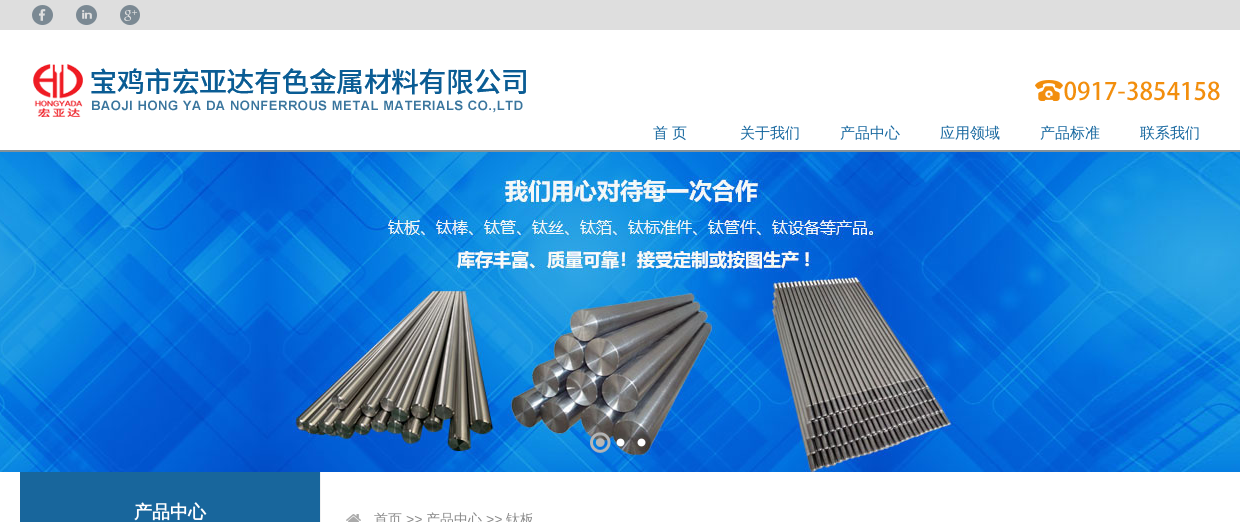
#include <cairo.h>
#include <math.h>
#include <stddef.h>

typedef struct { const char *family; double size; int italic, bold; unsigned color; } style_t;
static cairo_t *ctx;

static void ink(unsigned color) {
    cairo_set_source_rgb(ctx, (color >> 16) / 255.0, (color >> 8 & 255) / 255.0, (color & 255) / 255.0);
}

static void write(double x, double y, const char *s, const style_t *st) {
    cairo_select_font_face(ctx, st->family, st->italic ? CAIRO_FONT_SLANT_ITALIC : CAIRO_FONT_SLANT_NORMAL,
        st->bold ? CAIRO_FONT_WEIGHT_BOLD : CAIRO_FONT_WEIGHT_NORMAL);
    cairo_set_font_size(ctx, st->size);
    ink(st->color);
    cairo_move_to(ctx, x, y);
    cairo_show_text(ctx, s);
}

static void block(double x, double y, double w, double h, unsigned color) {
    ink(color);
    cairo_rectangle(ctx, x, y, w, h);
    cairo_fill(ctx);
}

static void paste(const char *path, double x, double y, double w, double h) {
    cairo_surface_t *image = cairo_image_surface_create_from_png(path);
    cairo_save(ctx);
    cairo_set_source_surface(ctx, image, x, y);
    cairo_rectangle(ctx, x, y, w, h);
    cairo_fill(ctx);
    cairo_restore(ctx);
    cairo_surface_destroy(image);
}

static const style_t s1 = {"WenQuanYi Zen Hei Medium", 15, 0, 0, 0x16679f};
static const style_t s2 = {"WenQuanYi Zen Hei", 18, 0, 1, 0xffffff};
static const style_t s3 = {"WenQuanYi Zen Hei Medium", 14, 0, 0, 0x888888};
static const style_t s4 = {"Liberation Sans", 14, 0, 0, 0x888888};

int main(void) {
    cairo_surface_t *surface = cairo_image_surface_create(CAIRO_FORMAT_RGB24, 1240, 522);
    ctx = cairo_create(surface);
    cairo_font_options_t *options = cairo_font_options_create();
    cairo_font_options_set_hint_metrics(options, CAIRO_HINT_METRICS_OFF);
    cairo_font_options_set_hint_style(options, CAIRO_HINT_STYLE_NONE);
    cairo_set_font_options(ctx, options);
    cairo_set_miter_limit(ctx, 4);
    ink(0xffffff);
    cairo_paint(ctx);
    block(0, 150, 1240, 2, 0x849199);
    block(0, 0, 1240, 30, 0xdedede);
    paste("pic1.png", 32, 5, 21, 20);
    paste("pic2.png", 76, 5, 21, 20);
    paste("pic3.png", 120, 5, 20, 20);
    paste("pic4.png", 33, 64, 493, 53);
    paste("pic5.png", 1035, 80, 185, 21);
    write(653, 138, "首", &s1);
    write(672, 138, "页", &s1);
    write(740, 138, "关于我们", &s1);
    write(840, 138, "产品中心", &s1);
    write(940, 138, "应用领域", &s1);
    write(1040, 138, "产品标准", &s1);
    write(1140, 138, "联系我们", &s1);
    paste("pic6.png", 0, 152, 1240, 320);
    paste("pic7.png", 590, 432, 21, 21);
    paste("pic8.png", 616, 438, 9, 9);
    paste("pic9.png", 637, 438, 9, 9);
    block(20, 472, 300, 50, 0x18669c);
    write(134, 518, "产品中心", &s2);
    block(320, 472, 1, 50, 0xf1f1f1);
    paste("pic10.png", 346, 514, 15, 8);
    write(374, 524, "首页", &s3);
    write(406, 524, ">>", &s4);
    write(426, 524, "产品中心", &s3);
    write(486, 524, ">>", &s4);
    write(506, 524, "钛板", &s3);
    cairo_surface_write_to_png(surface, "screenshot.png");
    cairo_font_options_destroy(options);
    cairo_destroy(ctx);
    cairo_surface_destroy(surface);
    return 0;
}
